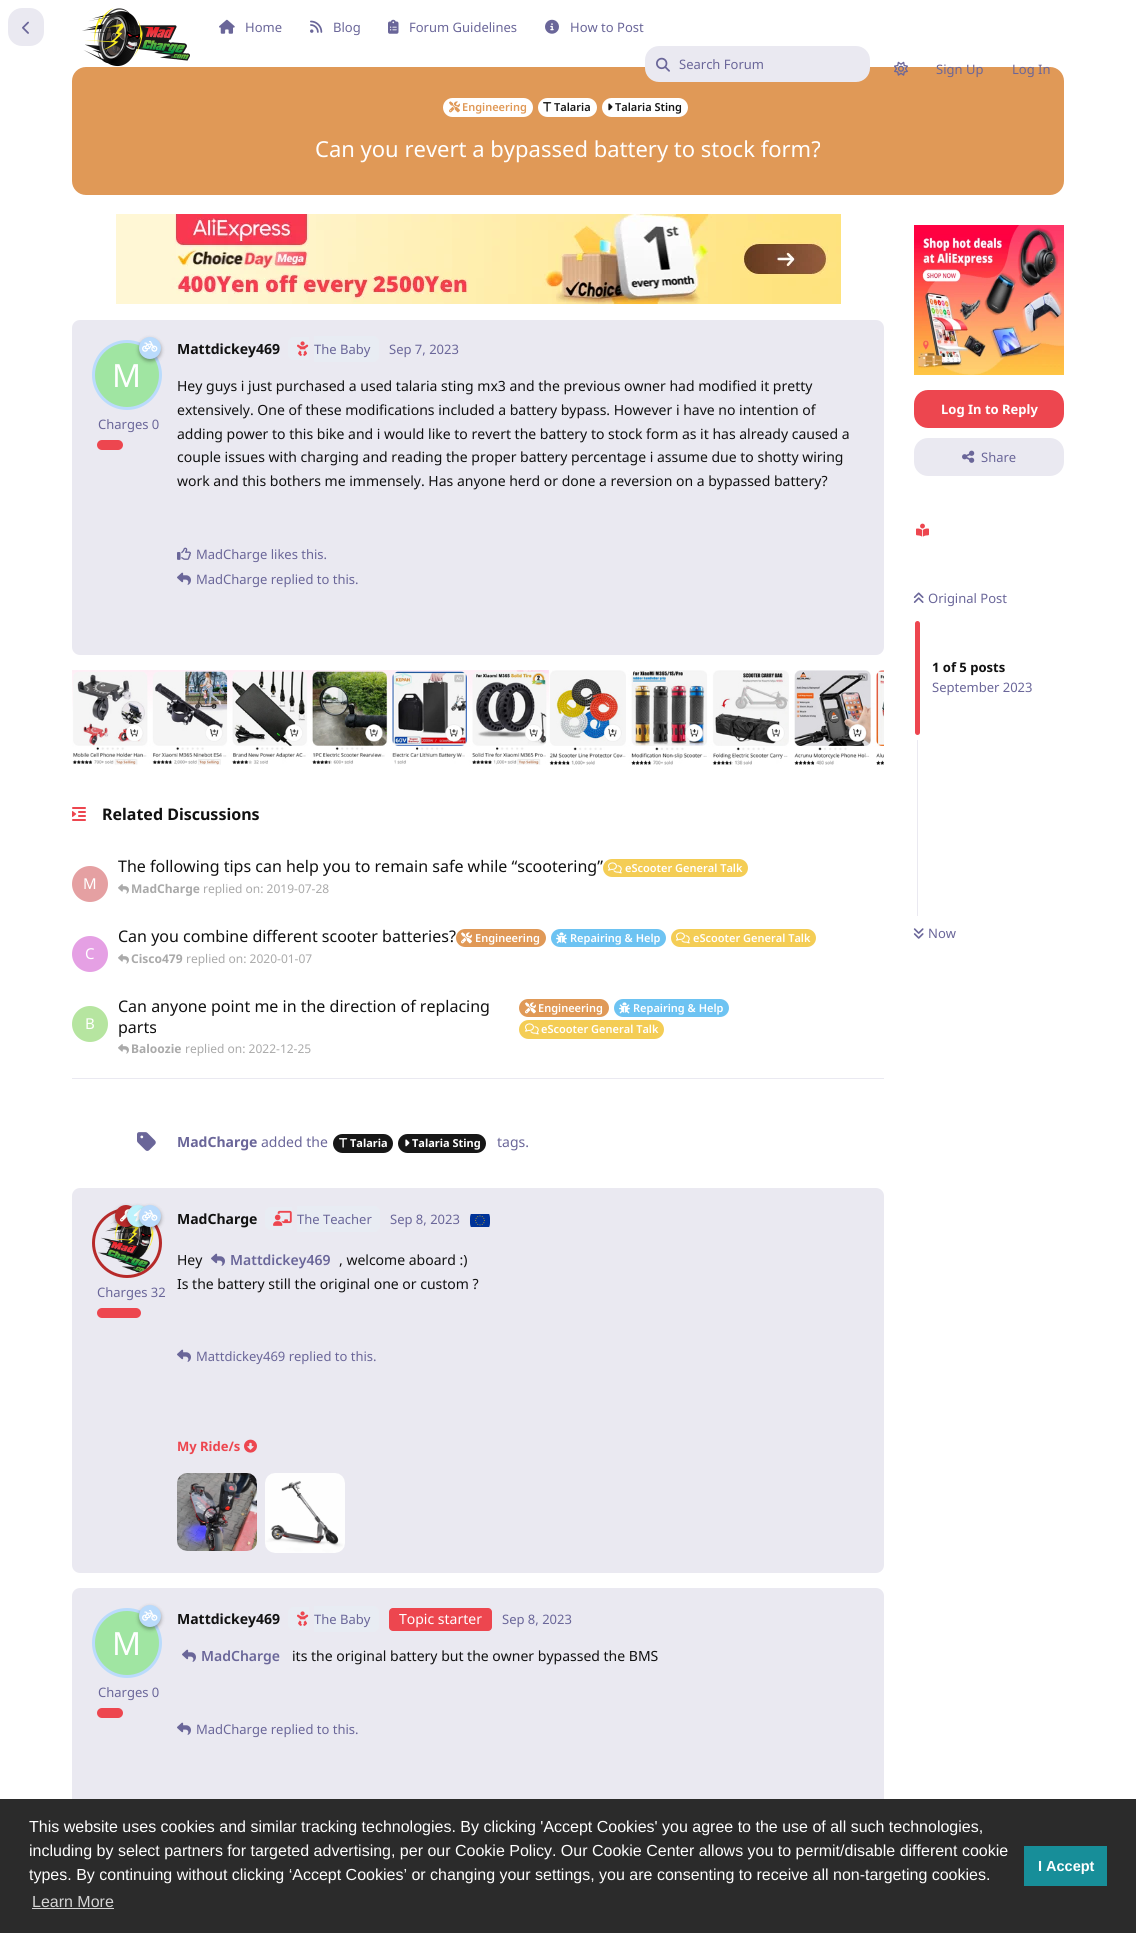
#include <cairo.h>
#include <math.h>
#include <stddef.h>

typedef struct { const char *family; double size; int italic, bold; unsigned color; } style_t;
static cairo_t *ctx;

static void ink(unsigned color) {
    cairo_set_source_rgb(ctx, (color >> 16) / 255.0, (color >> 8 & 255) / 255.0, (color & 255) / 255.0);
}

static void write(double x, double y, const char *s, const style_t *st) {
    cairo_select_font_face(ctx, st->family, st->italic ? CAIRO_FONT_SLANT_ITALIC : CAIRO_FONT_SLANT_NORMAL,
        st->bold ? CAIRO_FONT_WEIGHT_BOLD : CAIRO_FONT_WEIGHT_NORMAL);
    cairo_set_font_size(ctx, st->size);
    ink(st->color);
    cairo_move_to(ctx, x, y);
    cairo_show_text(ctx, s);
}

static void block(double x, double y, double w, double h, unsigned color) {
    ink(color);
    cairo_rectangle(ctx, x, y, w, h);
    cairo_fill(ctx);
}

static void round_path(double x, double y, double w, double h, double r) {
    cairo_new_sub_path(ctx);
    cairo_arc(ctx, x + w - r, y + h - r, r, 0, M_PI / 2);
    cairo_arc(ctx, x + r, y + h - r, r, M_PI / 2, M_PI);
    cairo_arc(ctx, x + r, y + r, r, M_PI, 1.5 * M_PI);
    cairo_arc(ctx, x + w - r, y + r, r, 1.5 * M_PI, 2 * M_PI);
    cairo_close_path(ctx);
}

static void blur_box(double x, double y, double w, double h, double r, double blur, double alpha) {
    cairo_push_group_with_content(ctx, CAIRO_CONTENT_ALPHA);
    cairo_set_operator(ctx, CAIRO_OPERATOR_SOURCE);
    for (int i = 15; i >= -15 && fmin(w, h) + blur * i / 3 > 0; i -= 2) {
        double e = blur * i / 6;
        cairo_set_source_rgba(ctx, 0, 0, 0, alpha * erfc((i - 1) / 8.5) / 2);
        round_path(x - e, y - e, w + 2 * e, h + 2 * e, fmax(0, fmin(r + e + blur * .6, fmin(w, h) / 2 + e)));
        cairo_fill(ctx);
    }
    cairo_pattern_t *soft = cairo_pop_group(ctx);
    cairo_mask(ctx, soft);
    cairo_pattern_destroy(soft);
}

static void paste(const char *path, double x, double y, double w, double h) {
    cairo_surface_t *image = cairo_image_surface_create_from_png(path);
    cairo_save(ctx);
    cairo_set_source_surface(ctx, image, x, y);
    cairo_rectangle(ctx, x, y, w, h);
    cairo_fill(ctx);
    cairo_restore(ctx);
    cairo_surface_destroy(image);
}

static const style_t s1 = {"Noto Sans", 13, 0, 0, 0x6a6699};
static const style_t s2 = {"Noto Sans SemiBold", 11, 0, 0, 0xe09957};
static const style_t s3 = {"Noto Sans SemiBold", 11, 0, 0, 0x171717};
static const style_t s4 = {"Noto Sans", 22, 0, 0, 0xffffff};
static const style_t s5 = {"Noto Sans", 14, 0, 1, 0x111111};
static const style_t s6 = {"Noto Sans", 32, 0, 0, 0xffffff};
static const style_t s7 = {"Noto Sans", 14, 0, 0, 0x111111};
static const style_t s8 = {"Noto Sans", 16, 0, 1, 0x111111};
static const style_t s9 = {"Noto Sans", 16, 0, 0, 0x111111};
static const style_t s10 = {"Noto Sans", 12, 0, 1, 0xaaaaaa};
static const style_t s11 = {"Noto Sans", 12, 0, 0, 0xaaaaaa};
static const style_t s12 = {"Noto Sans SemiBold", 11, 0, 0, 0xffffff};
static const style_t s13 = {"Noto Sans", 15, 0, 0, 0xffffff};
static const style_t s14 = {"Noto Sans", 14, 0, 1, 0x6a6699};
static const style_t s15 = {"Noto Sans", 14, 0, 0, 0x6a6699};
static const style_t s16 = {"Noto Sans", 11, 0, 1, 0xffffff};
static const style_t s17 = {"Noto Sans SemiBold", 14, 0, 0, 0x6a6699};
static const style_t s18 = {"Noto Sans", 13, 0, 1, 0xed464f};
static const style_t s19 = {"Noto Sans", 14, 0, 0, 0xffffff};
static const style_t s20 = {"Noto Sans", 13, 0, 1, 0xffffff};
static const style_t s21 = {"Noto Sans", 13, 0, 1, 0x111111};
static const style_t s22 = {"Liberation Sans", 16, 0, 0, 0xffffff};
static const style_t s23 = {"Liberation Sans", 16, 0, 0, 0xd5d5d5};
static const style_t s24 = {"Liberation Sans", 14.5, 0, 1, 0xffffff};

int main(void) {
    cairo_surface_t *surface = cairo_image_surface_create(CAIRO_FORMAT_RGB24, 1136, 1933);
    ctx = cairo_create(surface);
    cairo_font_options_t *options = cairo_font_options_create();
    cairo_font_options_set_hint_metrics(options, CAIRO_HINT_METRICS_OFF);
    cairo_font_options_set_hint_style(options, CAIRO_HINT_STYLE_NONE);
    cairo_set_font_options(ctx, options);
    cairo_set_miter_limit(ctx, 4);
    ink(0xffffff);
    cairo_paint(ctx);
    ink(0xeae9f1);
    round_path(8, 8, 36, 38, 14);
    cairo_fill(ctx);
    paste("pic1.png", 22, 21, 7, 13);
    paste("pic2.png", 82, 8, 108, 59);
    paste("pic3.png", 219, 19, 16, 15);
    write(245, 32, "Home", &s1);
    paste("pic4.png", 310, 20, 13, 13);
    write(333, 32, "Blog", &s1);
    paste("pic5.png", 388, 19, 11, 15);
    write(409, 32, "Forum Guidelines", &s1);
    paste("pic6.png", 545, 19, 14, 15);
    write(570, 32, "How to Post", &s1);
    ink(0xe09957);
    round_path(72, 67, 992, 128, 14);
    cairo_fill(ctx);
    ink(0xeae9f1);
    round_path(645, 46, 225, 36, 14);
    cairo_fill(ctx);
    paste("pic7.png", 656, 57, 14, 15);
    write(679, 69, "Search Forum", &s1);
    paste("pic8.png", 894, 61, 14, 15);
    write(936, 74, "Sign Up", &s1);
    write(1012, 74, "Log In", &s1);
    ink(0xffffff);
    round_path(443, 98, 90, 19, 9.5);
    cairo_fill(ctx);
    paste("pic9.png", 449, 101, 11, 12);
    write(462, 111, "Engineering", &s2);
    ink(0xffffff);
    round_path(538, 98, 59, 19, 9.5);
    cairo_fill(ctx);
    paste("pic10.png", 543, 102, 9, 10);
    write(554, 111, "Talaria", &s3);
    ink(0xffffff);
    round_path(602, 98, 86, 19, 9.5);
    cairo_fill(ctx);
    paste("pic11.png", 608, 103, 5, 8);
    write(615, 111, "Talaria Sting", &s3);
    write(315, 157, "Can you revert a bypassed battery to stock form?", &s4);
    paste("pic12.png", 116, 214, 725, 90);
    ink(0xeae9f1);
    round_path(72, 320, 812, 335, 8);
    cairo_fill(ctx);
    ink(0xa0e5a2);
    cairo_arc(ctx, 127, 375, 33.5, 0, 2 * M_PI);
    cairo_fill_preserve(ctx);
    ink(0xbadbfc);
    cairo_set_line_width(ctx, 3);
    cairo_stroke(ctx);
    ink(0x000000);
    blur_box(139, 339, 22, 22, 11, 2, 0.35);
    ink(0xbadbfc);
    cairo_arc(ctx, 150, 348, 11, 0, 2 * M_PI);
    cairo_fill(ctx);
    paste("pic13.png", 142, 341, 16, 11);
    write(177, 354, "Mattdickey469", &s5);
    write(112, 387, "M", &s6);
    ink(0xe8ecf3);
    cairo_new_path(ctx);
    cairo_move_to(ctx, 294, 337);
    cairo_line_to(ctx, 309, 337);
    cairo_line_to(ctx, 309, 360);
    cairo_line_to(ctx, 294, 360);
    cairo_curve_to(ctx, 290.5, 360, 288, 357.5, 288, 354);
    cairo_line_to(ctx, 288, 343);
    cairo_curve_to(ctx, 288, 339.5, 290.5, 337, 294, 337);
    cairo_close_path(ctx);
    cairo_fill(ctx);
    cairo_new_path(ctx);
    cairo_move_to(ctx, 314, 336);
    cairo_line_to(ctx, 373, 336);
    cairo_curve_to(ctx, 376.5, 336, 379, 338.5, 379, 342);
    cairo_line_to(ctx, 379, 356);
    cairo_curve_to(ctx, 379, 359.5, 376.5, 362, 373, 362);
    cairo_line_to(ctx, 314, 362);
    cairo_close_path(ctx);
    cairo_fill(ctx);
    paste("pic14.png", 297, 341, 12, 15);
    write(314, 354, "The Baby", &s1);
    write(98, 429, "Charges 0", &s1);
    ink(0xed464f);
    round_path(97, 440, 26, 10, 5);
    cairo_fill(ctx);
    write(389, 354, "Sep 7, 2023", &s1);
    write(177, 391, "Hey guys i just purchased a used talaria sting mx3 and the previous owner had modified it pretty", &s7);
    write(177, 415, "extensively. One of these modifications included a battery bypass. However i have no intention of", &s7);
    write(177, 439, "adding power to this bike and i would like to revert the battery to stock form as it has already caused a", &s7);
    write(177, 462, "couple issues with charging and reading the proper battery percentage i assume due to shotty wiring", &s7);
    write(177, 486, "work and this bothers me immensely. Has anyone herd or done a reversion on a bypassed battery?", &s7);
    paste("pic15.png", 177, 547, 14, 13);
    write(196, 559, "MadCharge likes this.", &s1);
    paste("pic16.png", 177, 572, 14, 13);
    write(196, 584, "MadCharge replied to this.", &s1);
    paste("pic17.png", 72, 670, 812, 95);
    paste("pic18.png", 72, 807, 14, 14);
    write(102, 820, "Related Discussions", &s8);
    write(118, 872, "The following tips can help you to remain safe while “scootering”", &s9);
    paste("pic19.png", 118, 884, 11, 10);
    write(131, 893, "MadCharge", &s10);
    write(203, 893, "replied on: 2019-07-28", &s11);
    ink(0xf4cd55);
    round_path(603, 859, 145, 18, 9);
    cairo_fill(ctx);
    paste("pic20.png", 608, 862, 14, 12);
    write(625, 872, "eScooter General Talk", &s12);
    ink(0xe5a0a2);
    cairo_new_path(ctx);
    cairo_arc(ctx, 90, 884, 18, 0, 2 * M_PI);
    cairo_fill(ctx);
    write(83, 889, "M", &s13);
    write(118, 942, "Can you combine different scooter batteries?", &s9);
    paste("pic19.png", 118, 954, 11, 10);
    write(131, 963, "Cisco479", &s10);
    write(186, 963, "replied on: 2020-01-07", &s11);
    ink(0xe09957);
    round_path(456, 929, 90, 18, 9);
    cairo_fill(ctx);
    paste("pic21.png", 461, 932, 11, 12);
    write(475, 942, "Engineering", &s12);
    ink(0x6dc3f2);
    round_path(551, 929, 115, 18, 9);
    cairo_fill(ctx);
    paste("pic22.png", 556, 932, 11, 12);
    write(570, 942, "Repairing & Help", &s12);
    ink(0xf4cd55);
    round_path(671, 929, 145, 18, 9);
    cairo_fill(ctx);
    paste("pic20.png", 676, 932, 14, 12);
    write(693, 942, "eScooter General Talk", &s12);
    ink(0xe5a0e4);
    cairo_new_path(ctx);
    cairo_arc(ctx, 90, 954, 18, 0, 2 * M_PI);
    cairo_fill(ctx);
    write(85, 959, "C", &s13);
    ink(0xb6e5a0);
    cairo_new_path(ctx);
    cairo_arc(ctx, 90, 1024, 18, 0, 2 * M_PI);
    cairo_fill(ctx);
    write(85, 1029, "B", &s13);
    write(118, 1012, "Can anyone point me in the direction of replacing", &s9);
    write(118, 1033, "parts", &s9);
    paste("pic19.png", 118, 1044, 11, 10);
    write(131, 1053, "Baloozie", &s10);
    write(185, 1053, "replied on: 2022-12-25", &s11);
    ink(0xe09957);
    round_path(519, 999, 90, 18, 9);
    cairo_fill(ctx);
    paste("pic21.png", 525, 1002, 11, 12);
    write(538, 1012, "Engineering", &s12);
    ink(0x6dc3f2);
    round_path(614, 999, 115, 18, 9);
    cairo_fill(ctx);
    paste("pic22.png", 619, 1002, 11, 12);
    write(633, 1012, "Repairing & Help", &s12);
    ink(0xf4cd55);
    round_path(519, 1020, 145, 19, 9.5);
    cairo_fill(ctx);
    paste("pic20.png", 525, 1023, 14, 12);
    write(541, 1033, "eScooter General Talk", &s12);
    block(72, 1078, 812, 1, 0xeae9f1);
    paste("pic23.png", 137, 1132, 19, 19);
    write(177, 1147, "MadCharge", &s14);
    write(261, 1147, "added the", &s15);
    ink(0x171717);
    round_path(333, 1134, 60, 19, 9.5);
    cairo_fill(ctx);
    paste("pic24.png", 339, 1138, 9, 10);
    write(350, 1147, "Talaria", &s16);
    ink(0x171717);
    round_path(398, 1134, 88, 19, 9.5);
    cairo_fill(ctx);
    paste("pic25.png", 405, 1139, 5, 8);
    write(412, 1147, "Talaria Sting", &s16);
    write(497, 1147, "tags.", &s15);
    ink(0xeae9f1);
    round_path(72, 1188, 812, 385, 8);
    cairo_fill(ctx);
    cairo_arc(ctx, 127, 1243, 33.5, 0, 2 * M_PI);
    ink(0xb72a2a);
    cairo_stroke(ctx);
    paste("pic28.png", 98, 1220, 56, 53);
    ink(0x000000);
    blur_box(115, 1207, 22, 22, 11, 2, 0.35);
    ink(0xb72a2a);
    cairo_arc(ctx, 126, 1216, 11, 0, 2 * M_PI);
    cairo_fill(ctx);
    paste("pic26.png", 120, 1209, 10, 13);
    ink(0x000000);
    blur_box(127, 1207, 22, 22, 11, 2, 0.35);
    ink(0xbdf2fc);
    cairo_arc(ctx, 138, 1216, 11, 0, 2 * M_PI);
    cairo_fill(ctx);
    paste("pic27.png", 133, 1209, 9, 13);
    ink(0x000000);
    blur_box(139, 1207, 22, 22, 11, 2, 0.35);
    ink(0xbadbfc);
    cairo_arc(ctx, 150, 1216, 11, 0, 2 * M_PI);
    cairo_fill(ctx);
    paste("pic13.png", 142, 1210, 16, 11);
    write(177, 1224, "MadCharge", &s5);
    ink(0xe8ecf3);
    cairo_new_path(ctx);
    cairo_move_to(ctx, 271, 1207);
    cairo_line_to(ctx, 292, 1207);
    cairo_line_to(ctx, 292, 1230);
    cairo_line_to(ctx, 271, 1230);
    cairo_curve_to(ctx, 267.5, 1230, 265, 1227.5, 265, 1224);
    cairo_line_to(ctx, 265, 1213);
    cairo_curve_to(ctx, 265, 1209.5, 267.5, 1207, 271, 1207);
    cairo_close_path(ctx);
    cairo_fill(ctx);
    cairo_new_path(ctx);
    cairo_move_to(ctx, 297, 1206);
    cairo_line_to(ctx, 374, 1206);
    cairo_curve_to(ctx, 377.5, 1206, 380, 1208.5, 380, 1212);
    cairo_line_to(ctx, 380, 1226);
    cairo_curve_to(ctx, 380, 1229.5, 377.5, 1232, 374, 1232);
    cairo_line_to(ctx, 297, 1232);
    cairo_close_path(ctx);
    cairo_fill(ctx);
    paste("pic29.png", 273, 1210, 19, 16);
    write(297, 1224, "The Teacher", &s1);
    write(97, 1297, "Charges 32", &s1);
    ink(0xed464f);
    round_path(97, 1308, 44, 10, 5);
    cairo_fill(ctx);
    write(390, 1224, "Sep 8, 2023", &s1);
    paste("pic30.png", 470, 1214, 20, 13);
    write(177, 1265, "Hey", &s7);
    paste("pic16.png", 211, 1253, 14, 13);
    write(230, 1265, "Mattdickey469", &s17);
    write(339, 1265, ", welcome aboard :)", &s7);
    write(177, 1289, "Is the battery still the original one or custom ?", &s7);
    paste("pic16.png", 177, 1349, 14, 13);
    write(196, 1361, "Mattdickey469 replied to this.", &s1);
    write(177, 1451, "My Ride/s", &s18);
    paste("pic31.png", 244, 1439, 13, 14);
    paste("pic32.png", 177, 1473, 80, 78);
    paste("pic33.png", 265, 1473, 80, 80);
    ink(0xeae9f1);
    round_path(72, 1588, 812, 242, 8);
    cairo_fill(ctx);
    ink(0xa0e5a2);
    cairo_arc(ctx, 127, 1643, 33.5, 0, 2 * M_PI);
    cairo_fill_preserve(ctx);
    ink(0xbadbfc);
    cairo_stroke(ctx);
    ink(0x000000);
    blur_box(139, 1607, 22, 22, 11, 2, 0.35);
    ink(0xbadbfc);
    cairo_arc(ctx, 150, 1616, 11, 0, 2 * M_PI);
    cairo_fill(ctx);
    paste("pic13.png", 142, 1610, 16, 11);
    write(177, 1624, "Mattdickey469", &s5);
    write(112, 1655, "M", &s6);
    ink(0xe8ecf3);
    cairo_new_path(ctx);
    cairo_move_to(ctx, 294, 1607);
    cairo_line_to(ctx, 309, 1607);
    cairo_line_to(ctx, 309, 1630);
    cairo_line_to(ctx, 294, 1630);
    cairo_curve_to(ctx, 290.5, 1630, 288, 1627.5, 288, 1624);
    cairo_line_to(ctx, 288, 1613);
    cairo_curve_to(ctx, 288, 1609.5, 290.5, 1607, 294, 1607);
    cairo_close_path(ctx);
    cairo_fill(ctx);
    cairo_new_path(ctx);
    cairo_move_to(ctx, 314, 1606);
    cairo_line_to(ctx, 373, 1606);
    cairo_curve_to(ctx, 376.5, 1606, 379, 1608.5, 379, 1612);
    cairo_line_to(ctx, 379, 1626);
    cairo_curve_to(ctx, 379, 1629.5, 376.5, 1632, 373, 1632);
    cairo_line_to(ctx, 314, 1632);
    cairo_close_path(ctx);
    cairo_fill(ctx);
    paste("pic14.png", 297, 1611, 12, 15);
    write(314, 1624, "The Baby", &s1);
    ink(0xed464f);
    round_path(389, 1608, 103, 23, 4);
    cairo_fill(ctx);
    write(399, 1624, "Topic starter", &s19);
    write(98, 1697, "Charges 0", &s1);
    ink(0xed464f);
    round_path(97, 1708, 26, 10, 5);
    cairo_fill(ctx);
    write(502, 1624, "Sep 8, 2023", &s1);
    paste("pic16.png", 182, 1649, 14, 13);
    write(201, 1661, "MadCharge", &s17);
    write(292, 1661, "its the original battery but the owner bypassed the BMS", &s7);
    paste("pic16.png", 177, 1722, 14, 13);
    write(196, 1734, "MadCharge replied to this.", &s1);
    paste("pic34.png", 914, 225, 150, 150);
    ink(0xed464f);
    round_path(914, 390, 150, 38, 14);
    cairo_fill(ctx);
    write(941, 414, "Log In to Reply", &s20);
    ink(0xeae9f1);
    round_path(914, 438, 150, 38, 14);
    cairo_fill(ctx);
    paste("pic35.png", 962, 450, 13, 13);
    write(981, 462, "Share", &s1);
    paste("pic36.png", 916, 523, 13, 14);
    paste("pic37.png", 913, 592, 11, 11);
    write(928, 603, "Original Post", &s1);
    ink(0xed464f);
    round_path(915, 621, 5, 114, 2.5);
    cairo_fill(ctx);
    write(932, 672, "1 of 5 posts", &s21);
    write(932, 692, "September 2023", &s1);
    block(917, 740, 1, 176, 0xeae9f1);
    paste("pic38.png", 913, 928, 11, 11);
    write(928, 938, "Now", &s1);
    block(0, 1799, 1136, 134, 0x2b2b2b);
    write(29, 1832, "This website uses cookies and similar tracking technologies. By clicking 'Accept Cookies' you agree to the use of all such technologies,", &s22);
    write(29, 1856, "including by select partners for targeted advertising, per our Cookie Policy. Our Cookie Center allows you to permit/disable different cookie", &s22);
    write(29, 1880, "types. By continuing without clicking ‘Accept Cookies’ or changing your settings, you are consenting to receive all non-targeting cookies.", &s22);
    write(32, 1907, "Learn More", &s23);
    block(32, 1908, 82, 1, 0xd5d5d5);
    block(1024, 1846, 83, 40, 0x178e99);
    write(1038, 1871, "I Accept", &s24);
    cairo_surface_write_to_png(surface, "screenshot.png");
    cairo_font_options_destroy(options);
    cairo_destroy(ctx);
    cairo_surface_destroy(surface);
    return 0;
}
